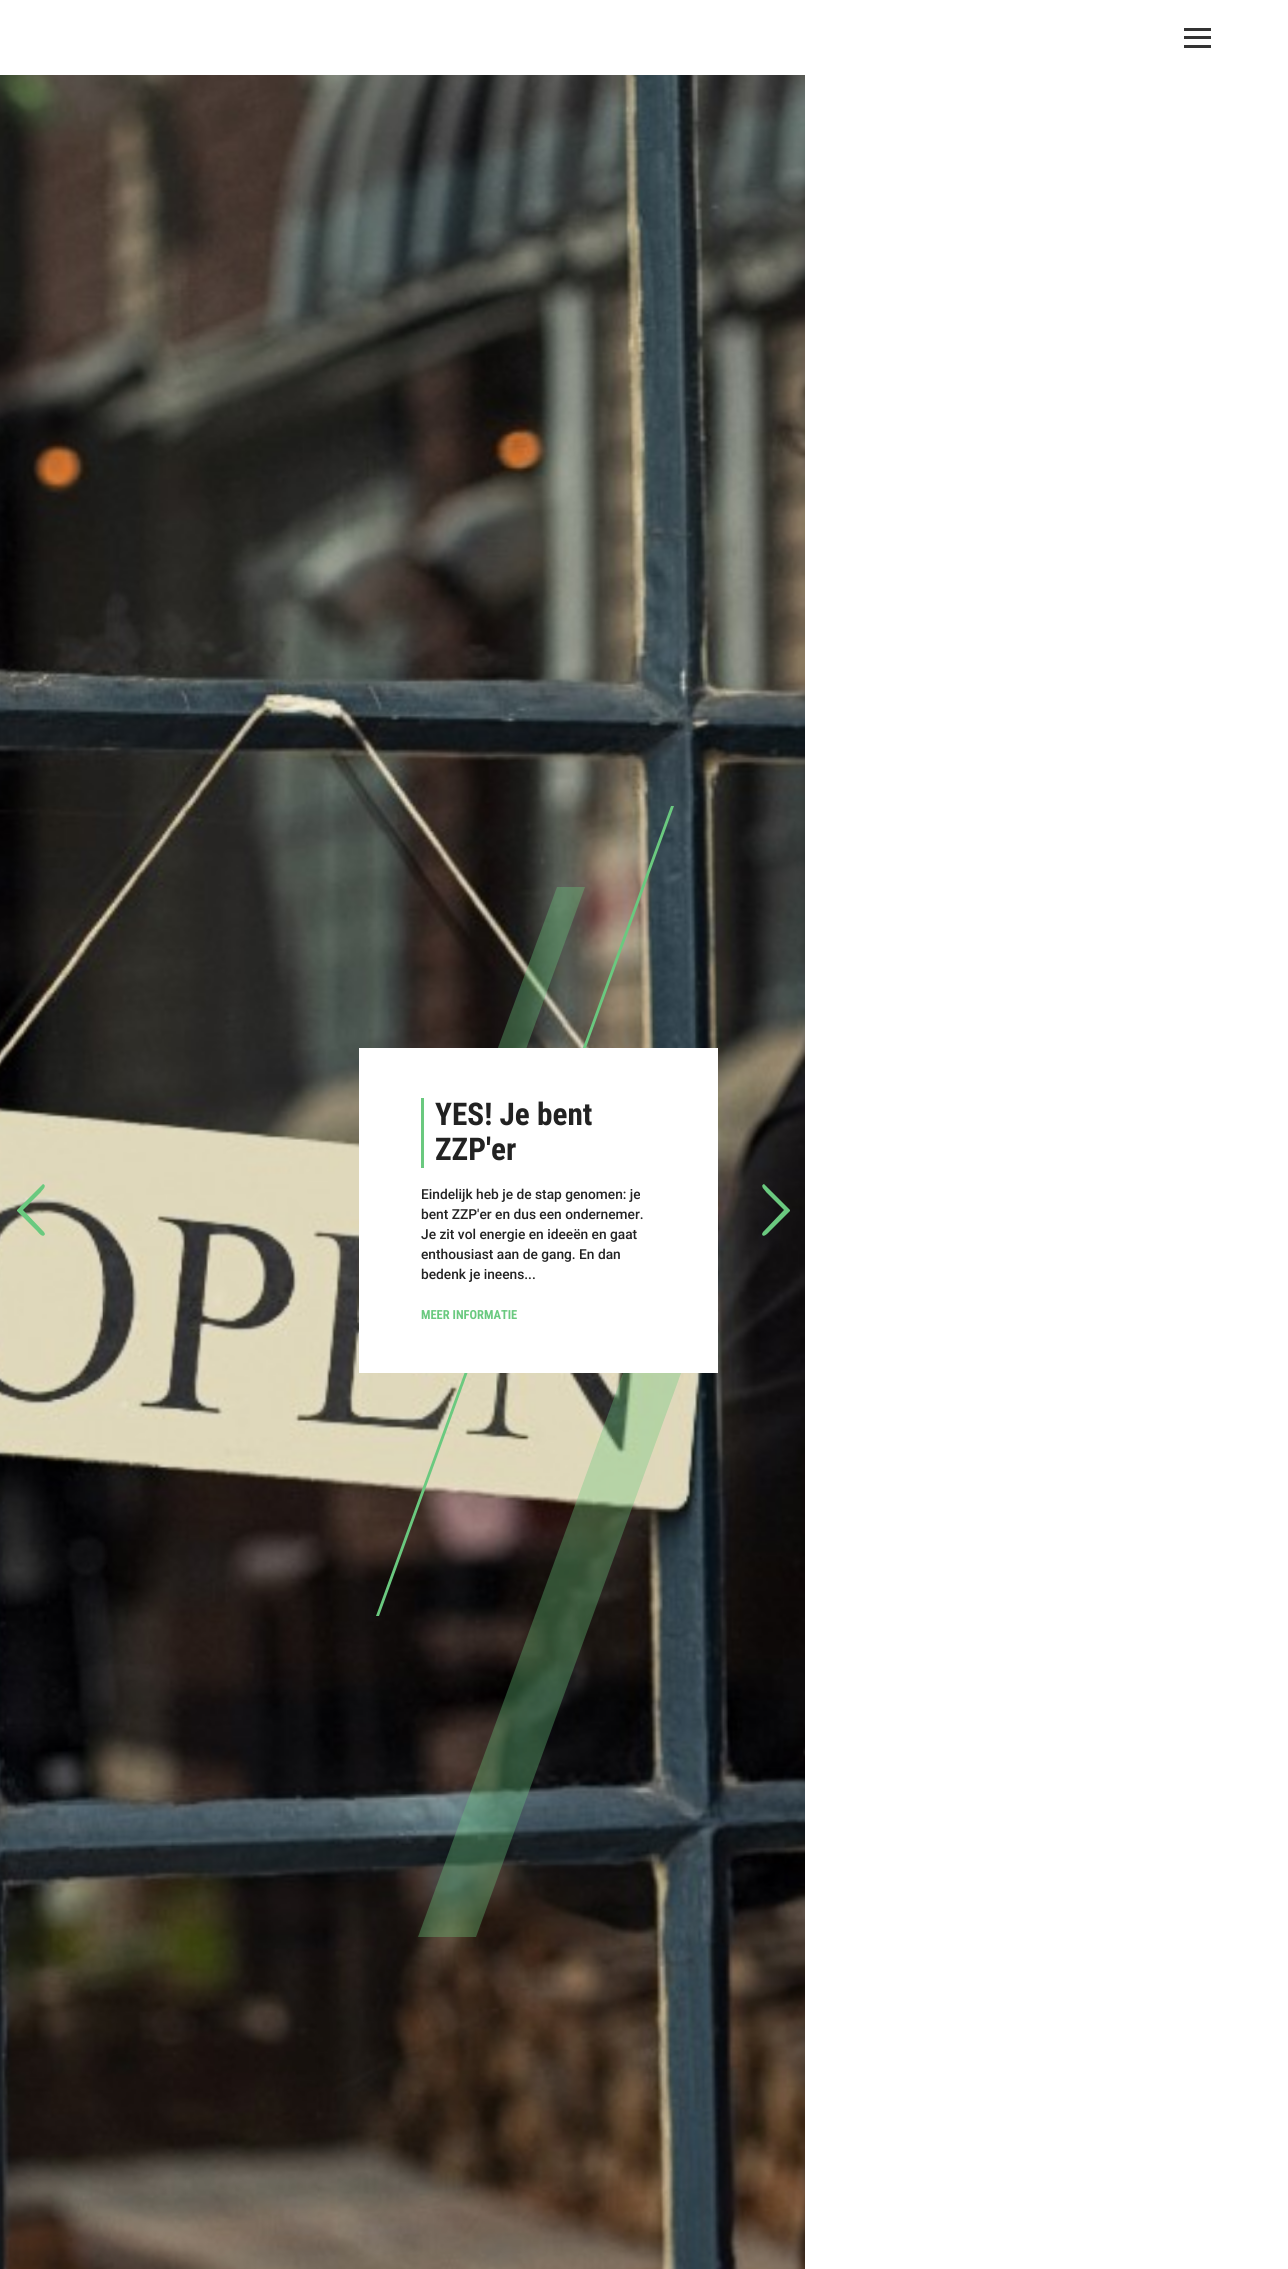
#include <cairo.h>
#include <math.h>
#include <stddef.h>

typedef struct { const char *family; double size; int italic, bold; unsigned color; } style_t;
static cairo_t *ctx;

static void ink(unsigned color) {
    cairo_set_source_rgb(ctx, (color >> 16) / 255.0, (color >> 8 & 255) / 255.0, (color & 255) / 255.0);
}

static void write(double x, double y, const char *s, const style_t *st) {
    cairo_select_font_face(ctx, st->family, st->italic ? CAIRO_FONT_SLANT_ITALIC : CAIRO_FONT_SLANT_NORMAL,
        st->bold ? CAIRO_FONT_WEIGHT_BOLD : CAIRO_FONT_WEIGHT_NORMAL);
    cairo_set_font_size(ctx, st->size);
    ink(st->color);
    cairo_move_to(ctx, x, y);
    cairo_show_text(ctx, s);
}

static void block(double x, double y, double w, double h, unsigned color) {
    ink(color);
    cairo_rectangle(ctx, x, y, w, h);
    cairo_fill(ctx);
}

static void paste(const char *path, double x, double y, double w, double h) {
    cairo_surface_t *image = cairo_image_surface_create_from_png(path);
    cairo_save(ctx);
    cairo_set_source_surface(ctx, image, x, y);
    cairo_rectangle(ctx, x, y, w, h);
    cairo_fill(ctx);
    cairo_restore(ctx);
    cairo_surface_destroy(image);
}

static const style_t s1 = {"Roboto Condensed", 31.25, 0, 1, 0x222222};
static const style_t s2 = {"Roboto Medium", 13.75, 0, 0, 0x222222};
static const style_t s3 = {"Roboto Condensed", 12.5, 0, 1, 0x6ac97f};

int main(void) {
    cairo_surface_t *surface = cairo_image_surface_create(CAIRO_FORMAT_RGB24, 1288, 2269);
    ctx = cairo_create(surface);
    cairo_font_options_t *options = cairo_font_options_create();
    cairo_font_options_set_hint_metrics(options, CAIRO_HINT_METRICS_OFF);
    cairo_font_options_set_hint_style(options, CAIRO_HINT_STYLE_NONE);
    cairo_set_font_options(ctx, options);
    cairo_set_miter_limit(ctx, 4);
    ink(0xffffff);
    cairo_paint(ctx);
    block(1184, 28, 27, 3, 0x333333);
    block(1184, 36, 27, 3, 0x333333);
    block(1184, 45, 27, 3, 0x333333);
    paste("pic1.png", 0, 75, 805, 2194);
    ink(0x6ac97f);
    cairo_new_path(ctx);
    cairo_move_to(ctx, 44, 1232);
    cairo_line_to(ctx, 45, 1234);
    cairo_curve_to(ctx, 43, 1239, 38, 1232, 37, 1231);
    cairo_line_to(ctx, 17, 1211);
    cairo_line_to(ctx, 17, 1210);
    cairo_line_to(ctx, 42, 1185);
    cairo_line_to(ctx, 43, 1184);
    cairo_curve_to(ctx, 48, 1186, 41, 1191, 41, 1192);
    cairo_line_to(ctx, 23, 1210);
    cairo_close_path(ctx);
    cairo_fill(ctx);
    cairo_set_source_rgba(ctx, 0.416, 0.788, 0.498, 0.35);
    cairo_new_path(ctx);
    cairo_move_to(ctx, 557, 887);
    cairo_line_to(ctx, 585, 887);
    cairo_line_to(ctx, 477, 1184);
    cairo_line_to(ctx, 448, 1184);
    cairo_close_path(ctx);
    cairo_fill(ctx);
    ink(0x6ac97f);
    cairo_new_path(ctx);
    cairo_move_to(ctx, 671, 806);
    cairo_line_to(ctx, 674, 806);
    cairo_line_to(ctx, 379, 1616);
    cairo_line_to(ctx, 376, 1616);
    cairo_close_path(ctx);
    cairo_fill(ctx);
    cairo_set_source_rgba(ctx, 0.416, 0.788, 0.498, 0.35);
    cairo_new_path(ctx);
    cairo_move_to(ctx, 654, 1288);
    cairo_line_to(ctx, 712, 1288);
    cairo_line_to(ctx, 476, 1937);
    cairo_line_to(ctx, 418, 1937);
    cairo_close_path(ctx);
    cairo_fill(ctx);
    block(359, 1048, 359, 325, 0xffffff);
    block(421, 1098, 3, 70, 0x6ac97f);
    write(435, 1125, "YES! Je bent", &s1);
    write(435, 1160, "ZZP'er", &s1);
    write(421, 1199, "Eindelijk heb je de stap genomen: je", &s2);
    write(421, 1219, "bent ZZP'er en dus een ondernemer.", &s2);
    write(421, 1239, "Je zit vol energie en ideeën en gaat", &s2);
    write(421, 1259, "enthousiast aan de gang. En dan", &s2);
    write(421, 1279, "bedenk je ineens...", &s2);
    write(421, 1319, "MEER INFORMATIE", &s3);
    cairo_new_path(ctx);
    cairo_move_to(ctx, 763, 1232);
    cairo_line_to(ctx, 784, 1210);
    cairo_line_to(ctx, 766, 1192);
    cairo_curve_to(ctx, 766, 1191, 759, 1186, 764, 1184);
    cairo_line_to(ctx, 765, 1185);
    cairo_line_to(ctx, 790, 1210);
    cairo_line_to(ctx, 790, 1211);
    cairo_line_to(ctx, 770, 1231);
    cairo_curve_to(ctx, 769, 1232, 763, 1239, 762, 1234);
    cairo_close_path(ctx);
    cairo_fill(ctx);
    cairo_surface_write_to_png(surface, "screenshot.png");
    cairo_font_options_destroy(options);
    cairo_destroy(ctx);
    cairo_surface_destroy(surface);
    return 0;
}
